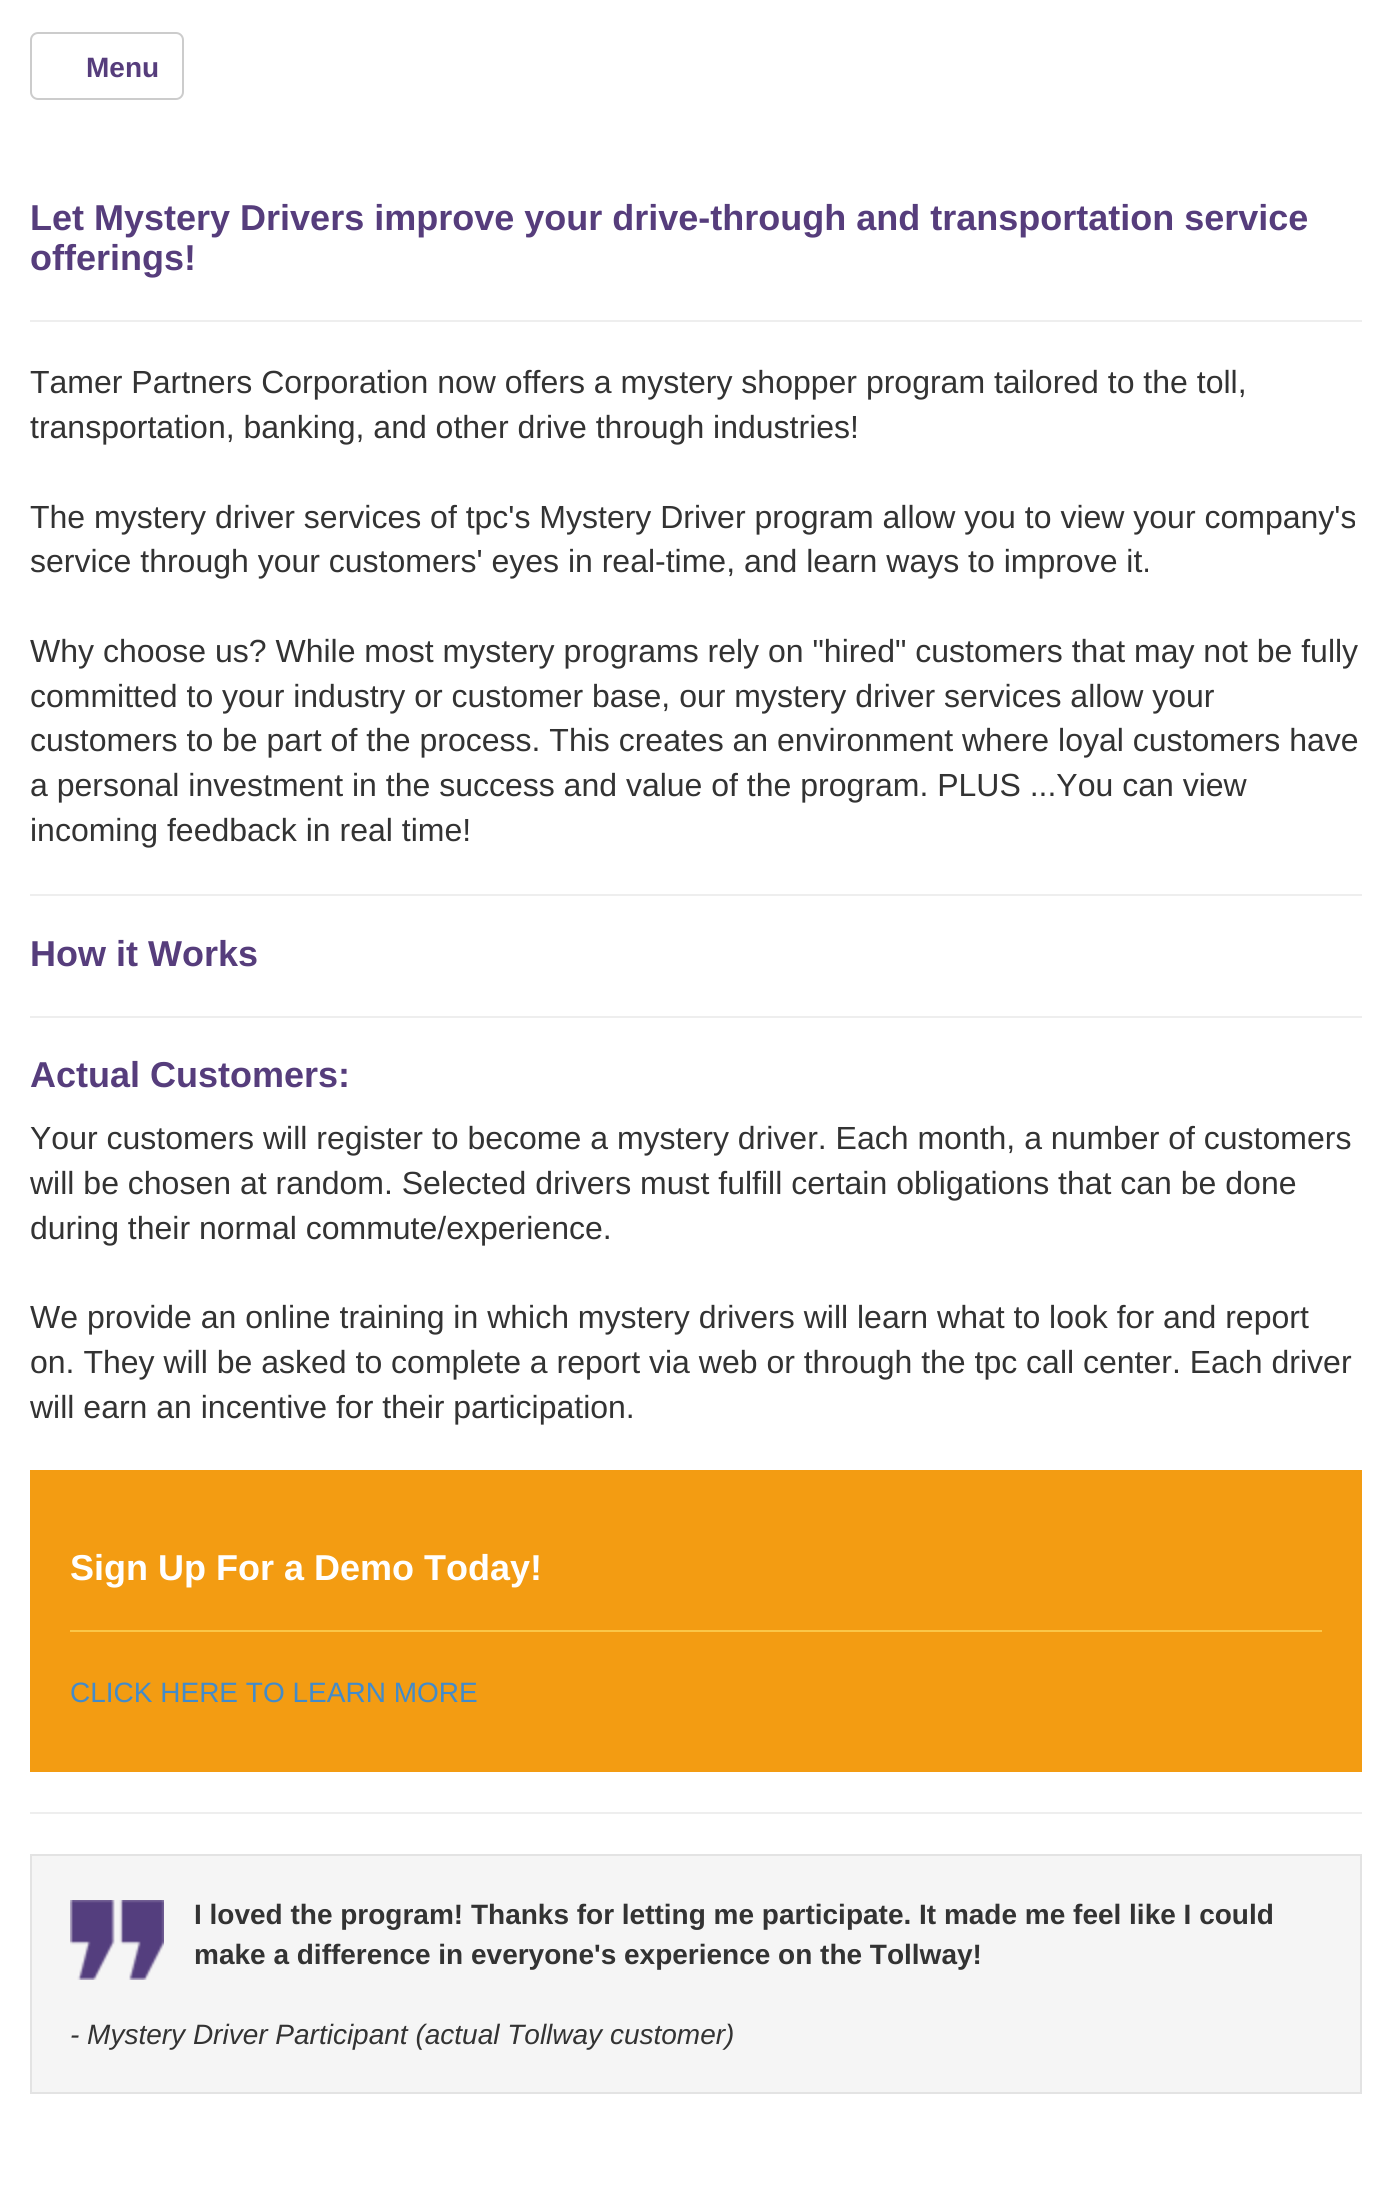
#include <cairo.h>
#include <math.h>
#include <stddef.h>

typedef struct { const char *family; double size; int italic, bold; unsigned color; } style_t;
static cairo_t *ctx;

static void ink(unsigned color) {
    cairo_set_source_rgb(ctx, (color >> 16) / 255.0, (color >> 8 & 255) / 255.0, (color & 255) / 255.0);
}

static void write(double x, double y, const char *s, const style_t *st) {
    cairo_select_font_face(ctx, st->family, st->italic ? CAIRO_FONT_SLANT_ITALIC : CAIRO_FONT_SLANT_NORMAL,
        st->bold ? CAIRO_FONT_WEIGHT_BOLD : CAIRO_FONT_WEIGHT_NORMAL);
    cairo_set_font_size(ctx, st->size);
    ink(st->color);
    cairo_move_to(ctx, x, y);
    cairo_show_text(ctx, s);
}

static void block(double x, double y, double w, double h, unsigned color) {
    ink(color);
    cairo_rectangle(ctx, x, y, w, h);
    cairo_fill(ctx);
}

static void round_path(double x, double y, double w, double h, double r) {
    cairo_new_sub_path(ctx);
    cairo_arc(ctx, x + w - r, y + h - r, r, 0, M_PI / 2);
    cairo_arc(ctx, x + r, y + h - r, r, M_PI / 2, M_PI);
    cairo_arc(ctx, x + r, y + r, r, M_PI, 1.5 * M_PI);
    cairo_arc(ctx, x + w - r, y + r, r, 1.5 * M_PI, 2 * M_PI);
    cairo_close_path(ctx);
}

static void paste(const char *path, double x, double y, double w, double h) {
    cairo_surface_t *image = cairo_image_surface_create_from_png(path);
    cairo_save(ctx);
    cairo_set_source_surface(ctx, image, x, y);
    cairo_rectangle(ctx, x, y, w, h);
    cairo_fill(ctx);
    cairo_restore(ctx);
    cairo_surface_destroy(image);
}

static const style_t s1 = {"Liberation Sans", 28, 0, 1, 0x563d7c};
static const style_t s2 = {"Liberation Sans", 36, 0, 1, 0x563d7c};
static const style_t s3 = {"Liberation Sans", 32, 0, 0, 0x333333};
static const style_t s4 = {"Liberation Sans", 36, 0, 1, 0xffffff};
static const style_t s5 = {"Liberation Sans", 28, 0, 0, 0x428bca};
static const style_t s6 = {"Liberation Sans", 28, 0, 1, 0x333333};
static const style_t s7 = {"Liberation Sans", 28, 1, 0, 0x333333};

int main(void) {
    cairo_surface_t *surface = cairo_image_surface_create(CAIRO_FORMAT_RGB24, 1392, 2193);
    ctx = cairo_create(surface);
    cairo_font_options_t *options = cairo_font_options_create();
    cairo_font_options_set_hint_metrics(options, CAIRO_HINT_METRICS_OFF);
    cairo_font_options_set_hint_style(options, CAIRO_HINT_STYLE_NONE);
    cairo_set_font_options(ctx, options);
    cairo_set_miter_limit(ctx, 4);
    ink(0xffffff);
    cairo_paint(ctx);
    round_path(31, 33, 152, 66, 7);
    ink(0xcccccc);
    cairo_stroke(ctx);
    write(86, 77, "Menu", &s1);
    write(30, 230, "Let Mystery Drivers improve your drive-through and transportation service", &s2);
    write(30, 270, "offerings!", &s2);
    block(30, 320, 1332, 2, 0xeeeeee);
    write(30, 393, "Tamer Partners Corporation now offers a mystery shopper program tailored to the toll,", &s3);
    write(30, 438, "transportation, banking, and other drive through industries!", &s3);
    write(30, 528, "The mystery driver services of tpc's Mystery Driver program allow you to view your company's", &s3);
    write(30, 572, "service through your customers' eyes in real-time, and learn ways to improve it.", &s3);
    write(30, 662, "Why choose us? While most mystery programs rely on \"hired\" customers that may not be fully", &s3);
    write(30, 707, "committed to your industry or customer base, our mystery driver services allow your", &s3);
    write(30, 751, "customers to be part of the process. This creates an environment where loyal customers have", &s3);
    write(30, 796, "a personal investment in the success and value of the program. PLUS ...You can view", &s3);
    write(30, 841, "incoming feedback in real time!", &s3);
    block(30, 894, 1332, 2, 0xeeeeee);
    write(30, 966, "How it Works", &s2);
    block(30, 1016, 1332, 2, 0xeeeeee);
    write(30, 1087, "Actual Customers:", &s2);
    write(30, 1149, "Your customers will register to become a mystery driver. Each month, a number of customers", &s3);
    write(30, 1194, "will be chosen at random. Selected drivers must fulfill certain obligations that can be done", &s3);
    write(30, 1239, "during their normal commute/experience.", &s3);
    write(30, 1328, "We provide an online training in which mystery drivers will learn what to look for and report", &s3);
    write(30, 1373, "on. They will be asked to complete a report via web or through the tpc call center. Each driver", &s3);
    write(30, 1418, "will earn an incentive for their participation.", &s3);
    block(30, 1470, 1332, 302, 0xf39c12);
    write(70, 1580, "Sign Up For a Demo Today!", &s4);
    block(70, 1630, 1252, 2, 0xfbc648);
    write(70, 1702, "CLICK HERE TO LEARN MORE", &s5);
    block(30, 1812, 1332, 2, 0xeeeeee);
    ink(0xf5f5f5);
    cairo_rectangle(ctx, 31, 1855, 1330, 238);
    cairo_fill_preserve(ctx);
    ink(0xe3e3e3);
    cairo_stroke(ctx);
    paste("pic1.png", 70, 1900, 94, 80);
    write(194, 1924, "I loved the program! Thanks for letting me participate. It made me feel like I could", &s6);
    write(194, 1964, "make a difference in everyone's experience on the Tollway!", &s6);
    write(70, 2044, "- Mystery Driver Participant (actual Tollway customer)", &s7);
    cairo_surface_write_to_png(surface, "screenshot.png");
    cairo_font_options_destroy(options);
    cairo_destroy(ctx);
    cairo_surface_destroy(surface);
    return 0;
}
